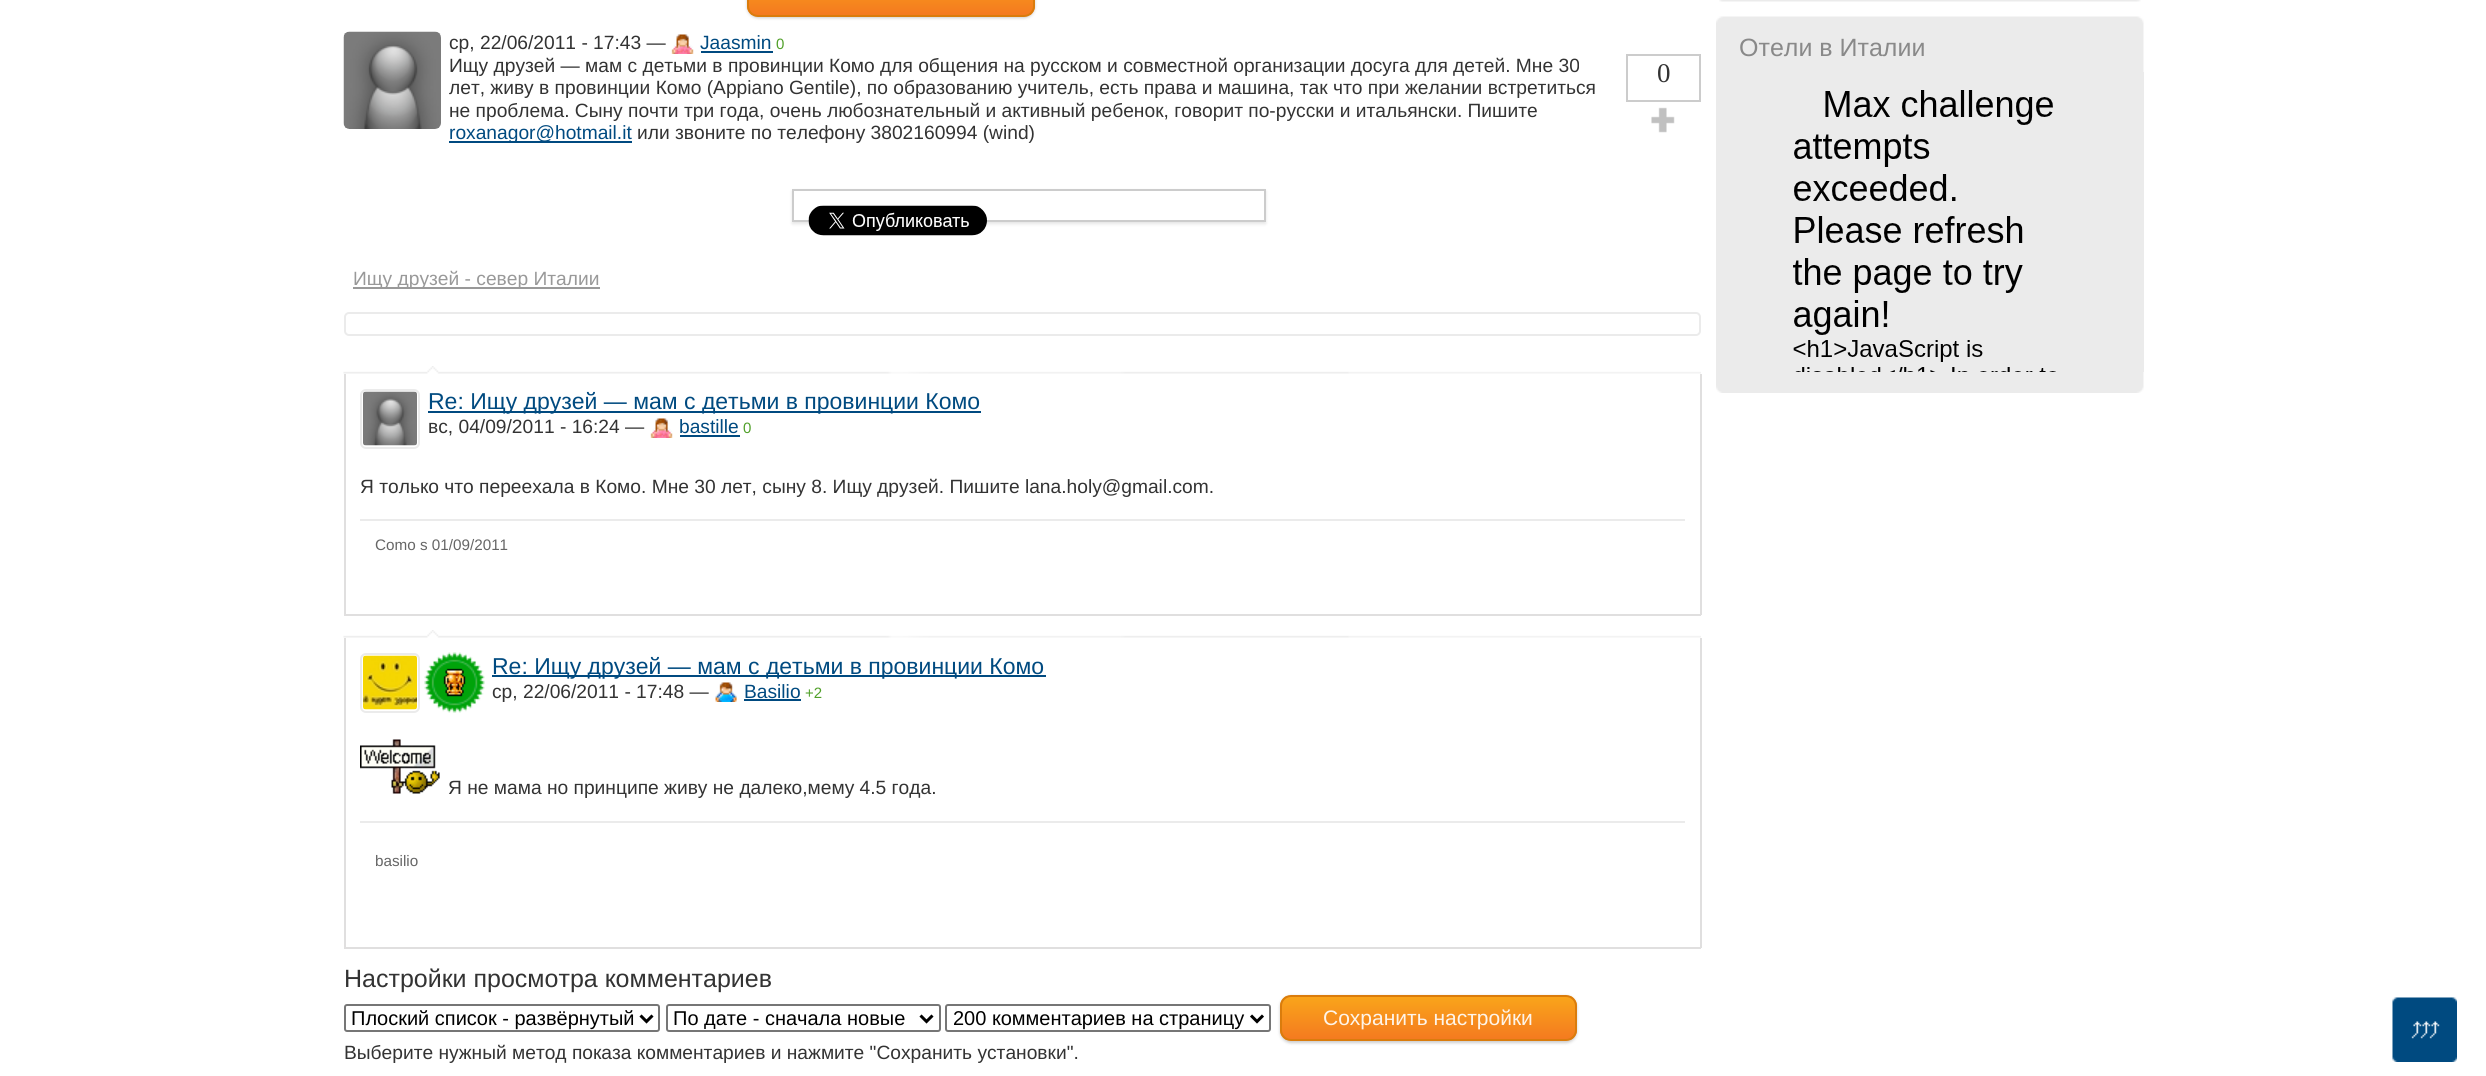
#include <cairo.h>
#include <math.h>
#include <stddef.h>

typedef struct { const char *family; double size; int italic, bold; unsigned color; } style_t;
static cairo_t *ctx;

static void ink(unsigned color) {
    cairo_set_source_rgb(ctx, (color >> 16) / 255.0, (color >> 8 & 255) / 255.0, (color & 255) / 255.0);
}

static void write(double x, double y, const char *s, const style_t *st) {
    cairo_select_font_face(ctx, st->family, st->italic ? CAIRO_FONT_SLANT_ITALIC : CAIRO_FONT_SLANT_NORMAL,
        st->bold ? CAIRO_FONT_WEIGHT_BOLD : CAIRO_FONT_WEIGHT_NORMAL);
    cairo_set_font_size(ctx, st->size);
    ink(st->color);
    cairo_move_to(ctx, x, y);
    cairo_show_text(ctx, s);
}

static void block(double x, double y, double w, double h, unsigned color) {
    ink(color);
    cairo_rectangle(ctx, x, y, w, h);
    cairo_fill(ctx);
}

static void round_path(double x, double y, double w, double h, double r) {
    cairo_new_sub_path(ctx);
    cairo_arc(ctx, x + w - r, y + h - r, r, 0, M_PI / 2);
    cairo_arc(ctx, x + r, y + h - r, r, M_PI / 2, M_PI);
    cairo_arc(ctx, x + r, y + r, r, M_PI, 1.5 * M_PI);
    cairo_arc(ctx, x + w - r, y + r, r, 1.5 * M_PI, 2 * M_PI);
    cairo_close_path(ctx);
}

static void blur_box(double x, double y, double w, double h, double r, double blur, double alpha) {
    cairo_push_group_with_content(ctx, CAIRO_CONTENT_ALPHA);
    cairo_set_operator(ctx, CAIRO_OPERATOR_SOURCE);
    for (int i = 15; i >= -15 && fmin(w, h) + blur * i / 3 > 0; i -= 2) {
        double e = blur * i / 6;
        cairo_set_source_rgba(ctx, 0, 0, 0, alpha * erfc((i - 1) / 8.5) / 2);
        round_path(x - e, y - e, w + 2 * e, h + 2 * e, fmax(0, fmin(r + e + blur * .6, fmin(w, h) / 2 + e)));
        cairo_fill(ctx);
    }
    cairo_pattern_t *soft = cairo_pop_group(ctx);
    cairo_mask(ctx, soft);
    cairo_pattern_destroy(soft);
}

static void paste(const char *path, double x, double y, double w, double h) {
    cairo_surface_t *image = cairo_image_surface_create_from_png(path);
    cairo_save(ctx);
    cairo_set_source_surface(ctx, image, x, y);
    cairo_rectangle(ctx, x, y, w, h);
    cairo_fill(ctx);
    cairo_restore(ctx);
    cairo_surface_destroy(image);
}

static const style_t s1 = {"Liberation Sans", 19.2, 0, 0, 0x333333};
static const style_t s2 = {"Liberation Sans", 19.2, 0, 0, 0x004a80};
static const style_t s3 = {"Liberation Sans", 15, 0, 0, 0x50a029};
static const style_t s4 = {"Liberation Serif", 27, 0, 0, 0x333333};
static const style_t s5 = {"Liberation Sans", 19.2, 0, 0, 0x999999};
static const style_t s6 = {"Liberation Sans", 23, 0, 0, 0x004a80};
static const style_t s7 = {"Liberation Sans", 15.25, 0, 0, 0x666666};
static const style_t s8 = {"Liberation Sans", 25, 0, 0, 0x333333};
static const style_t s9 = {"Liberation Sans", 20, 0, 0, 0x000000};
static const style_t s10 = {"Liberation Sans", 21, 0, 0, 0xfef4e9};
static const style_t s11 = {"Liberation Sans", 25, 0, 0, 0x898989};

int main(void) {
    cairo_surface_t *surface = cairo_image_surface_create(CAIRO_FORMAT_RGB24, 2486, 1076);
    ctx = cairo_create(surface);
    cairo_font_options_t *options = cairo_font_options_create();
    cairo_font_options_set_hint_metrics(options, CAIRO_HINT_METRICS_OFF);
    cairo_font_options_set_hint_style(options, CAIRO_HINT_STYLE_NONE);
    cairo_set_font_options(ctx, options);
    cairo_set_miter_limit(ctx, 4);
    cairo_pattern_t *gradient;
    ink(0xffffff);
    cairo_paint(ctx);
    ink(0x000000);
    blur_box(747, -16, 288, 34, 11, 1.5, 0.2);
    cairo_save(ctx);
    round_path(747, -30, 288, 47, 11);
    cairo_clip(ctx);
    gradient = cairo_pattern_create_linear(749, -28, 749, 15);
    cairo_pattern_add_color_stop_rgba(gradient, 0, 0.98, 0.647, 0.102, 1);
    cairo_pattern_add_color_stop_rgba(gradient, 1, 0.957, 0.478, 0.125, 1);
    cairo_set_source(ctx, gradient);
    cairo_pattern_destroy(gradient);
    cairo_rectangle(ctx, 747, 0, 288, 15);
    cairo_fill(ctx);
    cairo_restore(ctx);
    round_path(748, -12, 286, 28, 10);
    ink(0xda7c0c);
    cairo_stroke(ctx);
    paste("pic1.png", 343, 31, 98, 98);
    write(449, 49, "ср, 22/06/2011 - 17:43 —", &s1);
    paste("pic2.png", 671, 34, 23, 20);
    write(700, 49, "Jaasmin", &s2);
    block(701, 51, 72, 2, 0x004a80);
    write(776, 49, "0", &s3);
    write(449, 72, "Ищу друзей — мам с детьми в провинции Комо для общения на русском и совместной организации досуга для детей. Мне 30", &s1);
    cairo_rectangle(ctx, 1627, 55, 73, 46);
    ink(0xcccccc);
    cairo_stroke(ctx);
    write(1657, 82, "0", &s4);
    paste("pic3.png", 1651, 107, 24, 26);
    write(449, 94, "лет, живу в провинции Комо (Appiano Gentile), по образованию учитель, есть права и машина, так что при желании встретиться", &s1);
    write(449, 117, "не проблема. Сыну почти три года, очень любознательный и активный ребенок, говорит по-русски и итальянски. Пишите", &s1);
    block(449, 141, 183, 2, 0x004a80);
    write(449, 139, "roxanagor@hotmail.it", &s2);
    write(637, 139, "или звоните по телефону 3802160994 (wind)", &s1);
    cairo_save(ctx);
    cairo_set_fill_rule(ctx, CAIRO_FILL_RULE_EVEN_ODD);
    cairo_new_path(ctx);
    cairo_move_to(ctx, 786, 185);
    cairo_line_to(ctx, 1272, 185);
    cairo_line_to(ctx, 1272, 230);
    cairo_line_to(ctx, 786, 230);
    cairo_close_path(ctx);
    cairo_move_to(ctx, 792, 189);
    cairo_line_to(ctx, 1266, 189);
    cairo_line_to(ctx, 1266, 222);
    cairo_line_to(ctx, 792, 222);
    cairo_close_path(ctx);
    cairo_clip(ctx);
    ink(0x000000);
    blur_box(792, 191, 474, 33, 0, 1.5, 0.1);
    cairo_restore(ctx);
    cairo_rectangle(ctx, 793, 190, 472, 31);
    ink(0xcccccc);
    cairo_stroke(ctx);
    paste("pic4.png", 808, 205, 179, 31);
    block(353, 287, 247, 2, 0x999999);
    write(353, 285, "Ищу друзей - север Италии", &s5);
    round_path(345, 313, 1355, 22, 4);
    ink(0xebebeb);
    cairo_stroke(ctx);
    paste("pic5.png", 343, 366, 1358, 8);
    block(1700, 374, 2, 241, 0xe0dfdf);
    block(344, 614, 1357, 2, 0xe0dfdf);
    block(344, 374, 2, 241, 0xe0dfdf);
    round_path(361, 390, 58, 58, 5);
    ink(0xebebeb);
    cairo_stroke(ctx);
    paste("pic6.png", 363, 391, 54, 55);
    block(428, 411, 553, 2, 0x004a80);
    write(428, 409, "Re: Ищу друзей — мам с детьми в провинции Комо", &s6);
    write(428, 433, "вс, 04/09/2011 - 16:24 —", &s1);
    paste("pic2.png", 650, 418, 23, 20);
    write(679, 433, "bastille", &s2);
    block(680, 435, 60, 2, 0x004a80);
    write(743, 433, "0", &s3);
    write(360, 493, "Я только что переехала в Комо. Мне 30 лет, сыну 8. Ищу друзей. Пишите lana.holy@gmail.com.", &s1);
    block(360, 519, 1325, 2, 0xebebeb);
    write(375, 550, "Como s 01/09/2011", &s7);
    paste("pic5.png", 343, 630, 1358, 8);
    block(1700, 638, 2, 310, 0xe0dfdf);
    block(344, 947, 1357, 2, 0xe0dfdf);
    block(344, 638, 2, 310, 0xe0dfdf);
    round_path(361, 654, 58, 58, 5);
    ink(0xebebeb);
    cairo_stroke(ctx);
    paste("pic7.png", 363, 655, 54, 55);
    paste("pic8.png", 424, 652, 61, 61);
    block(492, 675, 554, 2, 0x004a80);
    write(492, 674, "Re: Ищу друзей — мам с детьми в провинции Комо", &s6);
    write(492, 698, "ср, 22/06/2011 - 17:48 —", &s1);
    paste("pic9.png", 715, 682, 22, 20);
    write(744, 698, "Basilio", &s2);
    block(744, 699, 57, 2, 0x004a80);
    write(805, 698, "+2", &s3);
    paste("pic10.png", 360, 739, 80, 55);
    write(448, 794, "Я не мама но принципе живу не далеко,мему 4.5 года.", &s1);
    block(360, 821, 1325, 2, 0xebebeb);
    write(375, 866, "basilio", &s7);
    write(344, 987, "Настройки просмотра комментариев", &s8);
    round_path(345, 1005, 314, 26, 2);
    ink(0x767676);
    cairo_stroke(ctx);
    cairo_new_path(ctx);
    cairo_move_to(ctx, 640.5, 1015.5);
    cairo_line_to(ctx, 646.5, 1021.5);
    cairo_line_to(ctx, 652.5, 1015.5);
    ink(0x000000);
    cairo_set_line_width(ctx, 3);
    cairo_stroke(ctx);
    write(351, 1025, "Плоский список - развёрнутый", &s9);
    round_path(667, 1005, 273, 26, 2);
    ink(0x767676);
    cairo_set_line_width(ctx, 2);
    cairo_stroke(ctx);
    cairo_new_path(ctx);
    cairo_move_to(ctx, 920.5, 1015.5);
    cairo_line_to(ctx, 926.5, 1021.5);
    cairo_line_to(ctx, 932.5, 1015.5);
    ink(0x000000);
    cairo_set_line_width(ctx, 3);
    cairo_stroke(ctx);
    write(673, 1025, "По дате - сначала новые", &s9);
    round_path(946, 1005, 324, 26, 2);
    ink(0x767676);
    cairo_set_line_width(ctx, 2);
    cairo_stroke(ctx);
    cairo_new_path(ctx);
    cairo_move_to(ctx, 1251, 1015.5);
    cairo_line_to(ctx, 1257, 1021.5);
    cairo_line_to(ctx, 1263, 1015.5);
    ink(0x000000);
    cairo_set_line_width(ctx, 3);
    cairo_stroke(ctx);
    write(953, 1025, "200 комментариев на страницу", &s9);
    ink(0x000000);
    blur_box(1280, 996, 297, 47, 11, 1.5, 0.2);
    cairo_save(ctx);
    round_path(1280, 995, 297, 46, 11);
    cairo_clip(ctx);
    gradient = cairo_pattern_create_linear(1281, 996, 1281, 1040);
    cairo_pattern_add_color_stop_rgba(gradient, 0, 0.98, 0.647, 0.102, 1);
    cairo_pattern_add_color_stop_rgba(gradient, 1, 0.957, 0.478, 0.125, 1);
    cairo_set_source(ctx, gradient);
    cairo_pattern_destroy(gradient);
    cairo_rectangle(ctx, 1280, 996, 297, 44);
    cairo_fill(ctx);
    cairo_restore(ctx);
    round_path(1281, 996, 295, 44, 10);
    ink(0xda7c0c);
    cairo_set_line_width(ctx, 2);
    cairo_stroke(ctx);
    write(1323, 1025, "Сохранить настройки", &s10);
    write(344, 1059, "Выберите нужный метод показа комментариев и нажмите \"Сохранить установки\".", &s1);
    paste("pic11.png", 2392, 997, 65, 65);
    paste("pic12.png", 1719, 0, 422, 2);
    paste("pic13.png", 1716, 372, 428, 21);
    paste("pic14.png", 1716, 16, 428, 56);
    write(1739, 56, "Отели в Италии", &s11);
    block(1716, 72, 428, 300, 0xebebeb);
    paste("pic15.png", 1793, 90, 263, 282);
    cairo_surface_write_to_png(surface, "screenshot.png");
    cairo_font_options_destroy(options);
    cairo_destroy(ctx);
    cairo_surface_destroy(surface);
    return 0;
}
